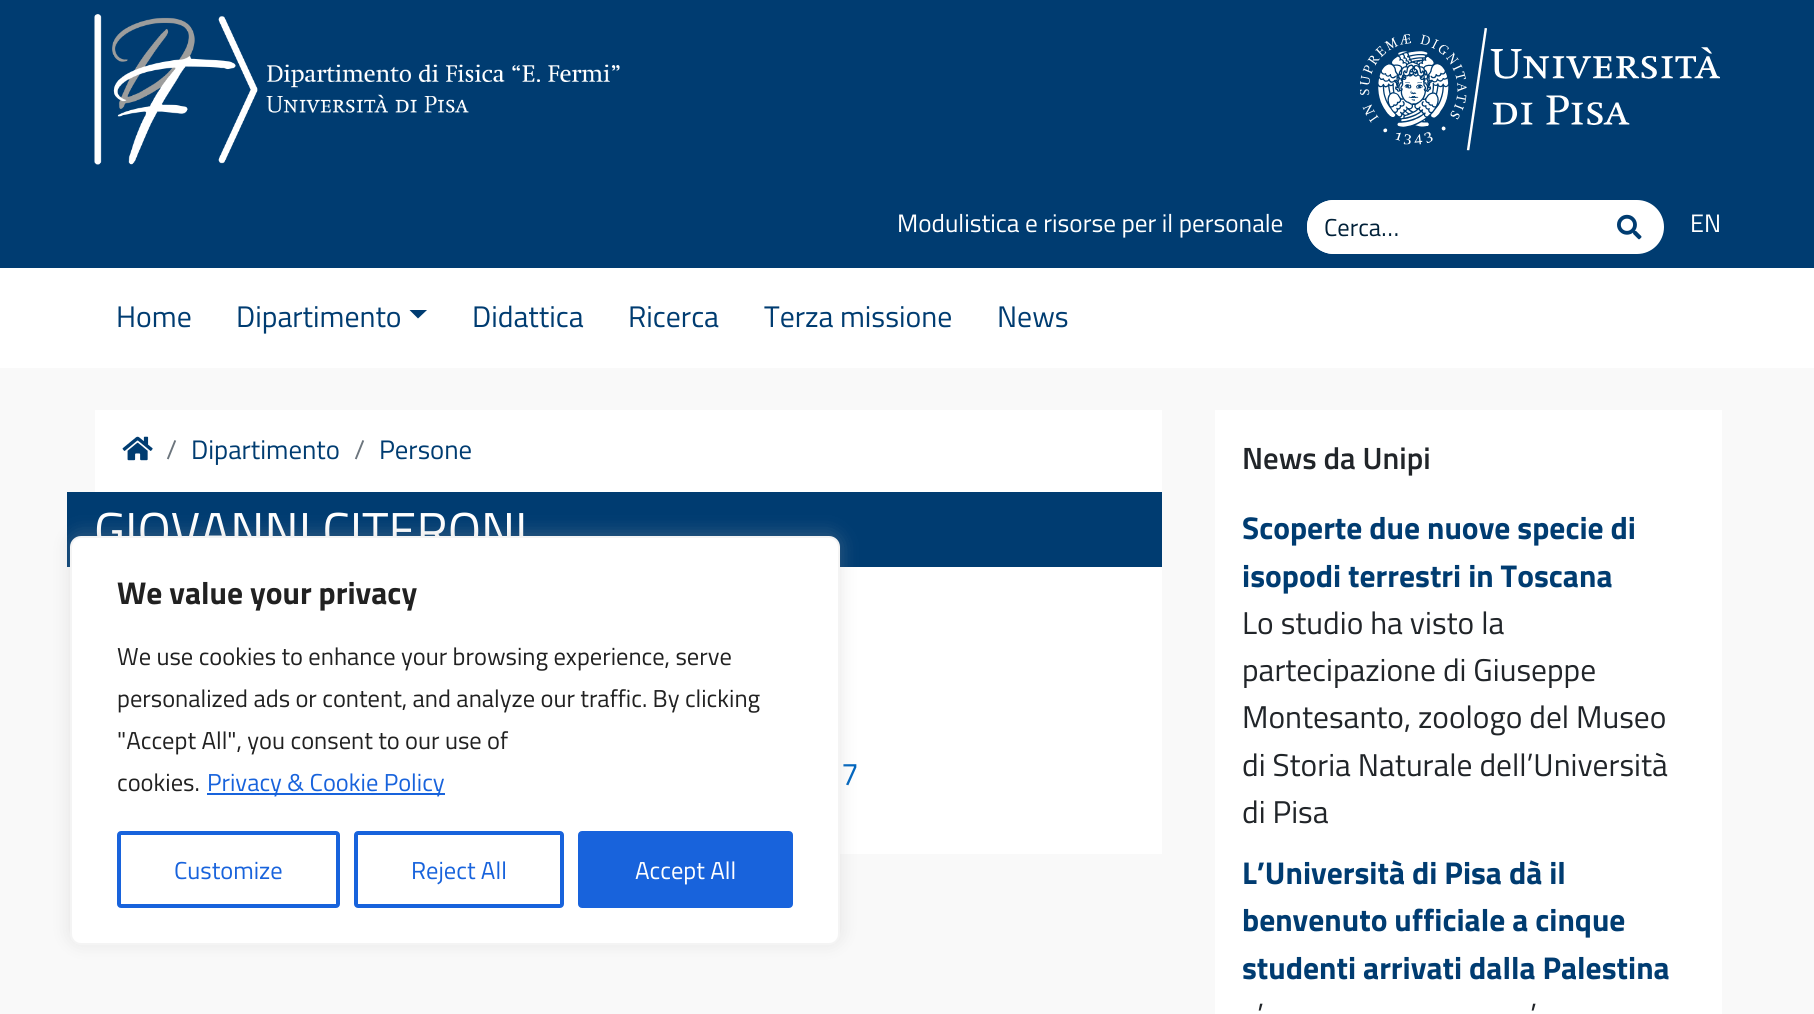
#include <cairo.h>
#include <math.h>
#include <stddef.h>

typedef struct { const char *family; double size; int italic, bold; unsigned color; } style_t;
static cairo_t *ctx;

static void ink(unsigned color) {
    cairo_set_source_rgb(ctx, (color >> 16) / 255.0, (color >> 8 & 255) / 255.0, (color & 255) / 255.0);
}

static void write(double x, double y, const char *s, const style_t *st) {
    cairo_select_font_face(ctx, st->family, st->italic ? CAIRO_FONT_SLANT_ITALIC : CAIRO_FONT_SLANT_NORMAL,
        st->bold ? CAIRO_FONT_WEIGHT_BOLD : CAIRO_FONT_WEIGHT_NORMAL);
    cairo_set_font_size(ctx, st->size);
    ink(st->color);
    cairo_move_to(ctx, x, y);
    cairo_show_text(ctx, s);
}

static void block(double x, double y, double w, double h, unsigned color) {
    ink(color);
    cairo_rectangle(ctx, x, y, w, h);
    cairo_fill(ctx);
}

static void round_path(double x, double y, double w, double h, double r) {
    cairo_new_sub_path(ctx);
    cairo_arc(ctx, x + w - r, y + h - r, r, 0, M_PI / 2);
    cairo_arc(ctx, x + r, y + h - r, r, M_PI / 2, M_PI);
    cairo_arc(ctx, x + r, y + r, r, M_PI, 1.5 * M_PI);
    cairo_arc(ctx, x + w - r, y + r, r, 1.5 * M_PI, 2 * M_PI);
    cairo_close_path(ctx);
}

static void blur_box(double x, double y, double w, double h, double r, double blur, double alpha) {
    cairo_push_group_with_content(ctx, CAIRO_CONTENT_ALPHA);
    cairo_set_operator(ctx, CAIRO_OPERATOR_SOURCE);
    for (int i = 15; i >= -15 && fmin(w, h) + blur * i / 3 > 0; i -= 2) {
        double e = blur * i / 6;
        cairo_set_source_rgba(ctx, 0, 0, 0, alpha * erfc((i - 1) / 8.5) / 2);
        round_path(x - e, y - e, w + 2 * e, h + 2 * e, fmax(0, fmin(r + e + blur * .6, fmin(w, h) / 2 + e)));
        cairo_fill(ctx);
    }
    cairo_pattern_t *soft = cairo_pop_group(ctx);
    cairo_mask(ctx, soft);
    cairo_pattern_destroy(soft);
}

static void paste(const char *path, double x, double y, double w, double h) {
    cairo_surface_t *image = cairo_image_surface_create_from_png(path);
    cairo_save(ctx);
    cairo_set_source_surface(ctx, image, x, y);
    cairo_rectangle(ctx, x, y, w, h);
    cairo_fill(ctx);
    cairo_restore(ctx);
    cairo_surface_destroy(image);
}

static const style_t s1 = {"Titillium Web", 25.25, 0, 0, 0xffffff};
static const style_t s2 = {"Titillium Web", 24.5, 0, 0, 0x002038};
static const style_t s3 = {"Titillium Web", 29.75, 0, 0, 0x003c71};
static const style_t s4 = {"Titillium Web", 26.75, 0, 0, 0x6c757d};
static const style_t s5 = {"Titillium Web", 26.75, 0, 0, 0x003c71};
static const style_t s6 = {"Titillium Web", 50.5, 0, 0, 0xffffff};
static const style_t s7 = {"Titillium Web", 31.5, 0, 0, 0x0065be};
static const style_t s8 = {"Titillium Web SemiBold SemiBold", 30.75, 0, 0, 0x212529};
static const style_t s9 = {"Titillium Web", 31.5, 0, 1, 0x003c71};
static const style_t s10 = {"Titillium Web", 31.5, 0, 0, 0x212529};
static const style_t s11 = {"Titillium Web", 31.5, 0, 1, 0x212121};
static const style_t s12 = {"Titillium Web", 24.5, 0, 0, 0x212121};
static const style_t s13 = {"Titillium Web", 24.5, 0, 0, 0x1863dc};
static const style_t s14 = {"Titillium Web", 24.5, 0, 0, 0xffffff};

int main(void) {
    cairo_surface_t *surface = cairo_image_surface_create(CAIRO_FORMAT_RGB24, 1814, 1014);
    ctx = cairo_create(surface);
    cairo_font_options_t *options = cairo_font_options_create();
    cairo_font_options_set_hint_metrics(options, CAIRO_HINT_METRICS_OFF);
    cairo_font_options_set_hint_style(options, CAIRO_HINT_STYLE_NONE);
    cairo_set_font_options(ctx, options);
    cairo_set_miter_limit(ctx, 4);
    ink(0xf9f9f9);
    cairo_paint(ctx);
    block(0, 0, 1814, 268, 0x003c71);
    paste("pic1.png", 94, 14, 526, 151);
    paste("pic2.png", 1360, 28, 360, 123);
    write(897, 232, "Modulistica e risorse per il personale", &s1);
    round_path(1307, 200, 357, 54, 27);
    cairo_fill(ctx);
    cairo_new_path(ctx);
    cairo_move_to(ctx, 1334, 201);
    cairo_line_to(ctx, 1602, 201);
    cairo_line_to(ctx, 1602, 253);
    cairo_line_to(ctx, 1334, 253);
    cairo_curve_to(ctx, 1319.5, 253, 1308, 241.5, 1308, 227);
    cairo_curve_to(ctx, 1308, 212.5, 1319.5, 201, 1334, 201);
    cairo_close_path(ctx);
    cairo_stroke(ctx);
    write(1324, 236, "Cerca…", &s2);
    paste("pic3.png", 1617, 214, 25, 26);
    write(1690, 232, "EN", &s1);
    block(0, 268, 1814, 100, 0xffffff);
    write(116, 327, "Home", &s3);
    write(236, 327, "Dipartimento", &s3);
    cairo_new_path(ctx);
    cairo_move_to(ctx, 409.5, 310);
    cairo_line_to(ctx, 427, 310);
    cairo_line_to(ctx, 418, 318.5);
    cairo_close_path(ctx);
    cairo_fill(ctx);
    write(472, 327, "Didattica", &s3);
    write(628, 327, "Ricerca", &s3);
    write(764, 327, "Terza missione", &s3);
    write(997, 327, "News", &s3);
    block(95, 410, 1067, 82, 0xffffff);
    paste("pic4.png", 122, 436, 31, 25);
    write(166, 459, "/", &s4);
    write(191, 459, "Dipartimento", &s5);
    write(354, 459, "/", &s4);
    write(379, 459, "Persone", &s5);
    block(67, 492, 1095, 75, 0x003c71);
    write(94, 548, "GIOVANNI CITERONI", &s6);
    block(840, 567, 322, 287, 0xffffff);
    write(841, 785, "7", &s7);
    block(1215, 410, 507, 604, 0xffffff);
    write(1242, 469, "News da Unipi", &s8);
    write(1242, 539, "Scoperte due nuove specie di", &s9);
    write(1242, 587, "isopodi terrestri in Toscana", &s9);
    write(1242, 634, "Lo studio ha visto la", &s10);
    write(1242, 681, "partecipazione di Giuseppe", &s10);
    write(1242, 728, "Montesanto, zoologo del Museo", &s10);
    write(1242, 776, "di Storia Naturale dell’Università", &s10);
    write(1242, 823, "di Pisa", &s10);
    write(1242, 884, "L’Università di Pisa dà il", &s9);
    write(1242, 931, "benvenuto ufficiale a cinque", &s9);
    write(1242, 979, "studenti arrivati dalla Palestina", &s9);
    write(1257, 1026, "’", &s10);
    write(1530, 1026, "’", &s10);
    ink(0xacabab);
    blur_box(70, 534, 770, 409, 11, 9, 0.3);
    ink(0xffffff);
    round_path(71, 537, 768, 407, 10);
    cairo_fill_preserve(ctx);
    ink(0xf4f4f4);
    cairo_stroke(ctx);
    write(117, 604, "We value your privacy", &s11);
    write(117, 665, "We use cookies to enhance your browsing experience, serve", &s12);
    write(117, 707, "personalized ads or content, and analyze our traffic. By clicking", &s12);
    write(117, 749, "\"Accept All\", you consent to our use of", &s12);
    write(117, 791, "cookies.", &s12);
    block(207, 793, 238, 2, 0x1863dc);
    write(207, 791, "Privacy & Cookie Policy", &s13);
    round_path(119, 833, 219, 73, 2);
    cairo_set_line_width(ctx, 4);
    cairo_stroke(ctx);
    write(174, 879, "Customize", &s13);
    round_path(356, 833, 206, 73, 2);
    cairo_stroke(ctx);
    write(411, 879, "Reject All", &s13);
    round_path(580, 833, 211, 73, 2);
    cairo_fill_preserve(ctx);
    cairo_stroke(ctx);
    write(635, 879, "Accept All", &s14);
    cairo_surface_write_to_png(surface, "screenshot.png");
    cairo_font_options_destroy(options);
    cairo_destroy(ctx);
    cairo_surface_destroy(surface);
    return 0;
}
